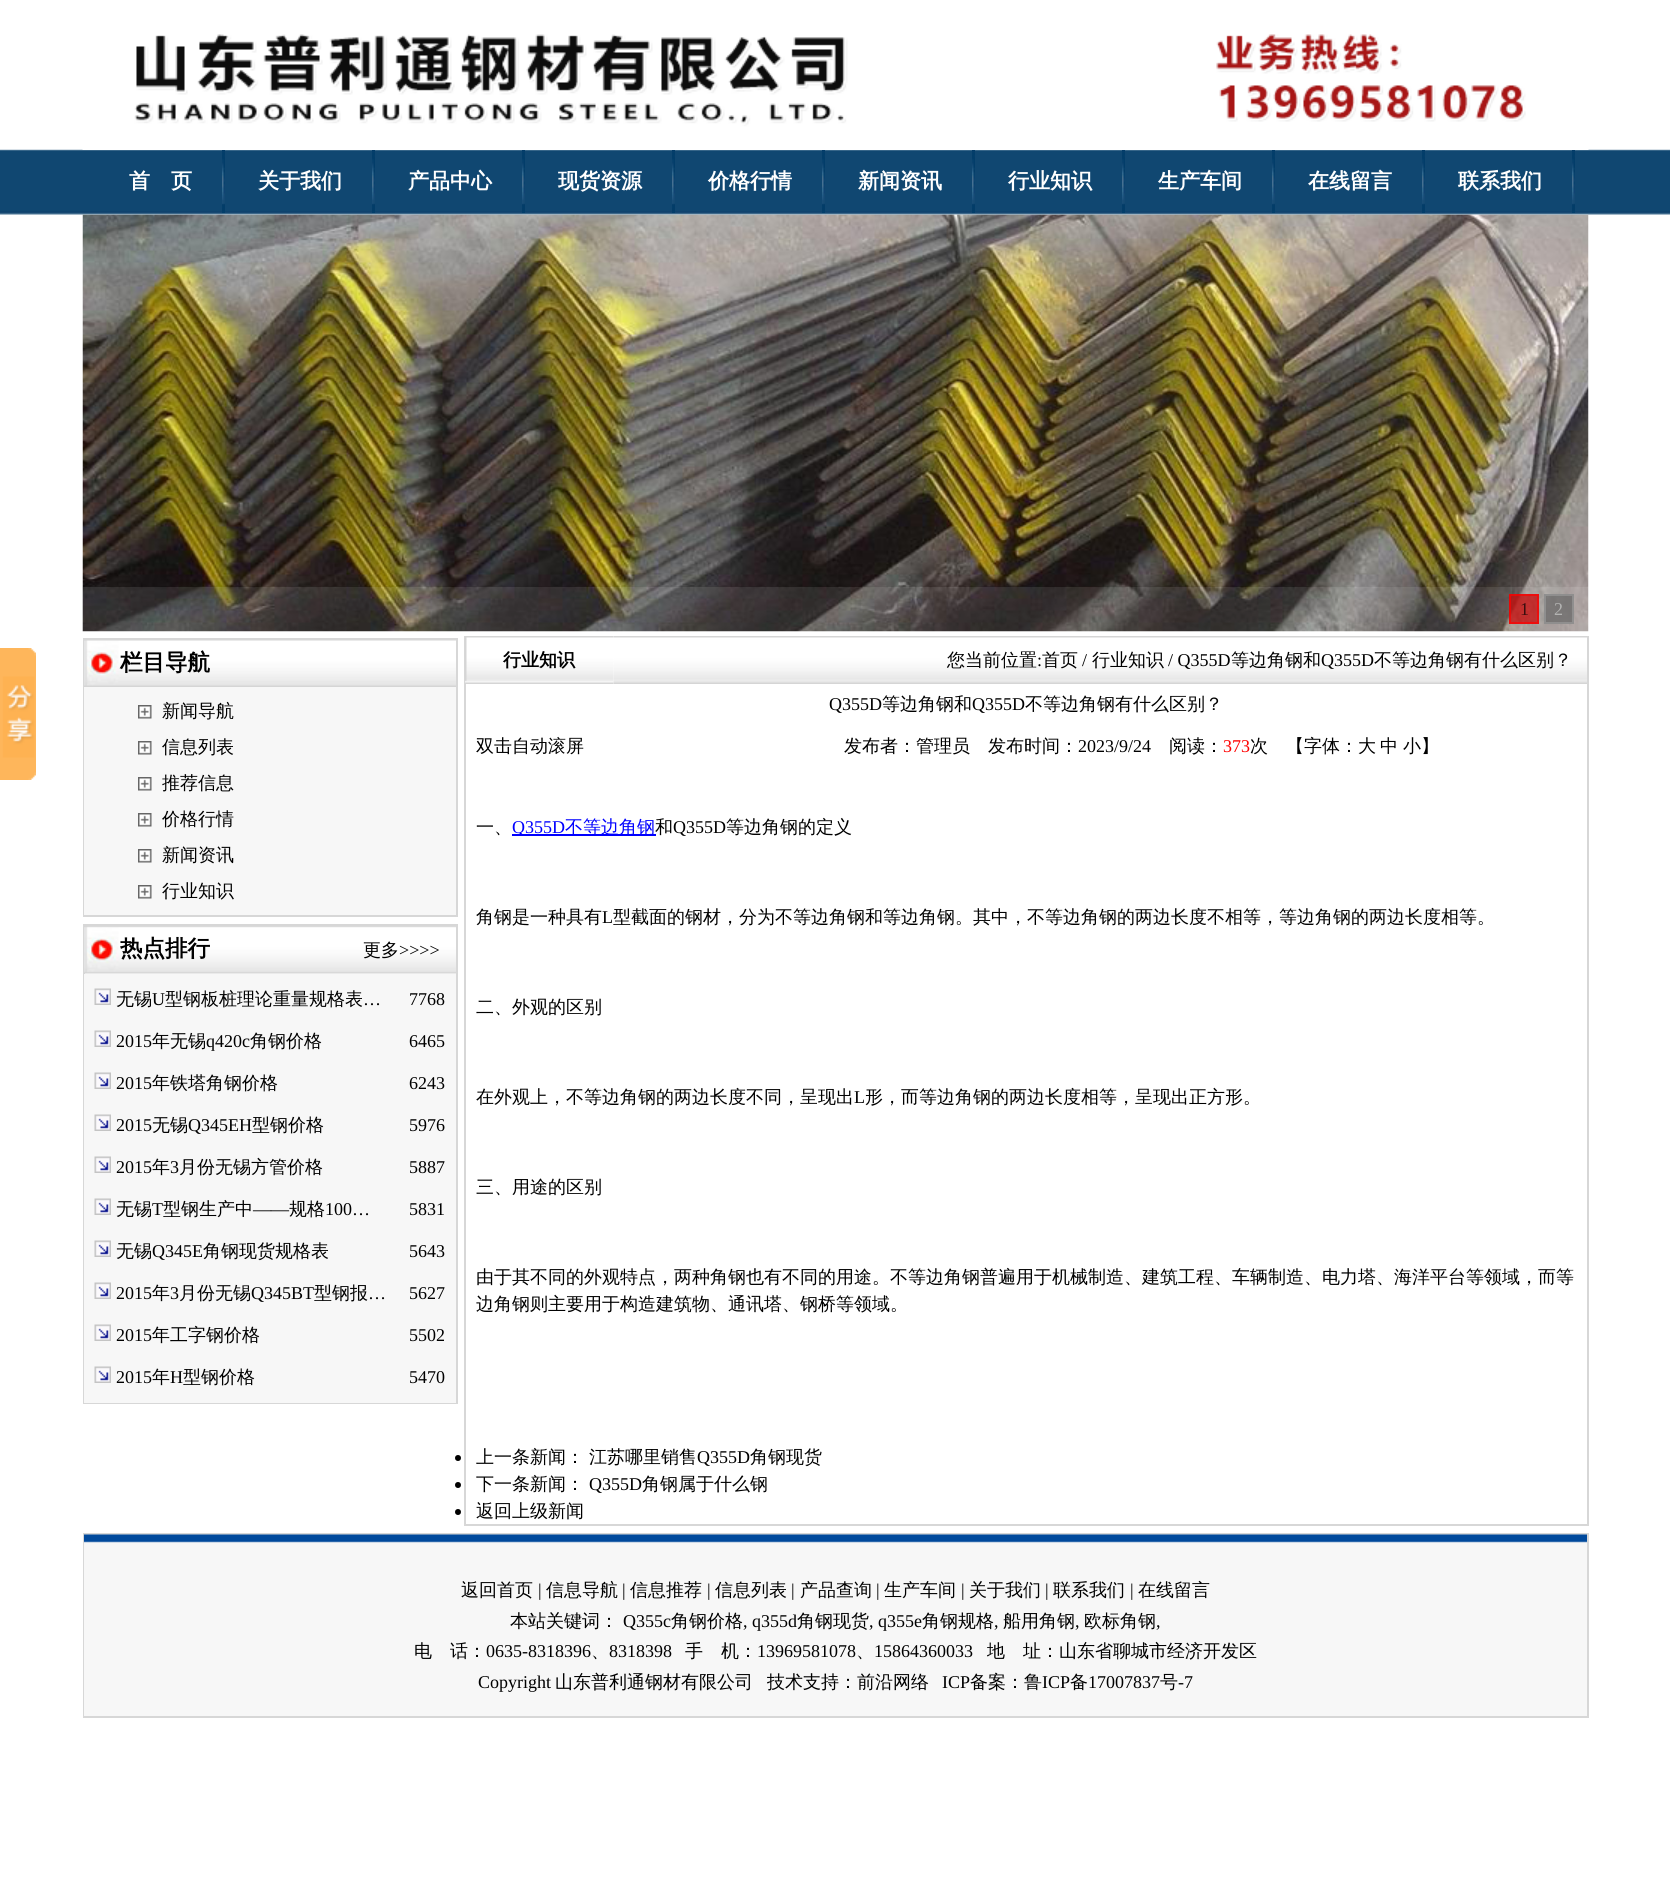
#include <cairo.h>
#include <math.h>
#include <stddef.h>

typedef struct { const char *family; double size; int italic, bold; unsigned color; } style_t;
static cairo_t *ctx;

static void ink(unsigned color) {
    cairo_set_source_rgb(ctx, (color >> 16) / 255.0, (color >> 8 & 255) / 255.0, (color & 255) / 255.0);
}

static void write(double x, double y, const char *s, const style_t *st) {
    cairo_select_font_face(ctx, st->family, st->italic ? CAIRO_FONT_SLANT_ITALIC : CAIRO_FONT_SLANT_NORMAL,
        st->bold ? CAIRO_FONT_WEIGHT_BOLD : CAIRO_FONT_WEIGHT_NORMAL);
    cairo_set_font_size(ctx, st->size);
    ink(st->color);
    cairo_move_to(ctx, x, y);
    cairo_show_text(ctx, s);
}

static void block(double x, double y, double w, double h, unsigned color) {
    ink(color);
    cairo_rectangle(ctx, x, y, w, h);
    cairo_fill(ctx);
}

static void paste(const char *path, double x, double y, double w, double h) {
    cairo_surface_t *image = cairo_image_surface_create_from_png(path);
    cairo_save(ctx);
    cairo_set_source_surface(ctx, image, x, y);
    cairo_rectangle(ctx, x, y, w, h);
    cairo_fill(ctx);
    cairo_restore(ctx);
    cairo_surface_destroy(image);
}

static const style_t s1 = {"WenQuanYi Zen Hei", 21, 0, 1, 0xffffff};
static const style_t s2 = {"Liberation Serif", 18, 0, 0, 0x3a0e0e};
static const style_t s3 = {"Liberation Serif", 18, 0, 0, 0xb3b3b2};
static const style_t s4 = {"WenQuanYi Zen Hei", 22.5, 0, 1, 0x000000};
static const style_t s5 = {"WenQuanYi Zen Hei Medium", 18, 0, 0, 0x000000};
static const style_t s6 = {"Liberation Serif", 18, 0, 0, 0x000000};
static const style_t s7 = {"WenQuanYi Zen Hei", 18, 0, 1, 0x000000};
static const style_t s8 = {"Liberation Serif", 18, 0, 0, 0xff0000};
static const style_t s9 = {"Liberation Serif", 18, 0, 0, 0x0000ff};
static const style_t s10 = {"WenQuanYi Zen Hei Medium", 18, 0, 0, 0x0000ff};

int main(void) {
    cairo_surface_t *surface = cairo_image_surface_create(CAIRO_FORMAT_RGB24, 1670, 1888);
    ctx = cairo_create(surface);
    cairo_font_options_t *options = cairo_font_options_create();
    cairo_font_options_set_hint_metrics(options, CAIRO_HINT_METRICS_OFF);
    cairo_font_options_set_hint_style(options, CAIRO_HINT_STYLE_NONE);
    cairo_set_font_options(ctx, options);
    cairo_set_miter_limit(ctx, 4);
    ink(0xffffff);
    cairo_paint(ctx);
    paste("pic1.png", 0, 149, 1670, 66);
    paste("pic2.png", 82, 34, 1507, 116);
    paste("pic3.png", 222, 150, 3, 63);
    write(129, 188, "首　页", &s1);
    paste("pic4.png", 372, 150, 3, 63);
    write(258, 188, "关于我们", &s1);
    paste("pic4.png", 522, 150, 3, 63);
    write(408, 188, "产品中心", &s1);
    paste("pic3.png", 672, 150, 3, 63);
    write(558, 188, "现货资源", &s1);
    paste("pic3.png", 822, 150, 3, 63);
    write(708, 188, "价格行情", &s1);
    paste("pic3.png", 972, 150, 3, 63);
    write(858, 188, "新闻资讯", &s1);
    paste("pic4.png", 1122, 150, 3, 63);
    write(1008, 188, "行业知识", &s1);
    paste("pic3.png", 1272, 150, 3, 63);
    write(1158, 188, "生产车间", &s1);
    paste("pic3.png", 1422, 150, 3, 63);
    write(1308, 188, "在线留言", &s1);
    paste("pic3.png", 1572, 150, 3, 63);
    write(1458, 188, "联系我们", &s1);
    paste("pic5.png", 82, 214, 1507, 418);
    cairo_set_source_rgba(ctx, 1, 1, 1, 0.1);
    cairo_rectangle(ctx, 83, 587, 1506, 45);
    cairo_fill(ctx);
    cairo_set_source_rgba(ctx, 0.8, 0, 0, 0.7);
    cairo_rectangle(ctx, 1509, 594, 30, 30);
    cairo_fill(ctx);
    cairo_rectangle(ctx, 1510, 595, 28, 28);
    cairo_set_source_rgba(ctx, 1, 0, 0, 0.7);
    cairo_stroke(ctx);
    write(1520, 615, "1", &s2);
    cairo_set_source_rgba(ctx, 0.4, 0.4, 0.4, 0.7);
    cairo_rectangle(ctx, 1544, 594, 30, 30);
    cairo_fill(ctx);
    cairo_rectangle(ctx, 1545, 595, 28, 28);
    cairo_set_source_rgba(ctx, 0.6, 0.6, 0.6, 0.7);
    cairo_stroke(ctx);
    write(1554, 615, "2", &s3);
    paste("pic6.png", 0, 648, 36, 132);
    cairo_rectangle(ctx, 84, 639, 373, 277);
    ink(0xd7d7d7);
    cairo_stroke(ctx);
    paste("pic7.png", 84, 640, 372, 47);
    write(120, 670, "栏目导航", &s4);
    block(84, 687, 372, 228, 0xf7f7f7);
    paste("pic8.png", 138, 705, 14, 14);
    write(162, 717, "新闻导航", &s5);
    paste("pic8.png", 138, 741, 14, 14);
    write(162, 753, "信息列表", &s5);
    paste("pic8.png", 138, 777, 14, 14);
    write(162, 789, "推荐信息", &s5);
    paste("pic8.png", 138, 813, 14, 14);
    write(162, 825, "价格行情", &s5);
    paste("pic8.png", 138, 849, 14, 14);
    write(162, 861, "新闻资讯", &s5);
    paste("pic8.png", 138, 885, 14, 14);
    write(162, 897, "行业知识", &s5);
    cairo_rectangle(ctx, 84, 925, 373, 478);
    ink(0xd7d7d7);
    cairo_stroke(ctx);
    paste("pic9.png", 84, 926, 372, 48);
    write(120, 956, "热点排行", &s4);
    write(363, 956, "更多", &s5);
    write(399, 956, ">>>>", &s6);
    block(84, 974, 372, 429, 0xf7f7f7);
    paste("pic10.png", 94, 988, 17, 17);
    write(116, 1005, "无锡", &s5);
    write(152, 1005, "U", &s6);
    write(165, 1005, "型钢板桩理论重量规格表", &s5);
    write(363, 1005, "…", &s6);
    write(409, 1005, "7768", &s6);
    paste("pic10.png", 94, 1030, 17, 17);
    write(116, 1047, "2015", &s6);
    write(152, 1047, "年无锡", &s5);
    write(206, 1047, "q420c", &s6);
    write(250, 1047, "角钢价格", &s5);
    write(409, 1047, "6465", &s6);
    paste("pic10.png", 94, 1072, 17, 17);
    write(116, 1089, "2015", &s6);
    write(152, 1089, "年铁塔角钢价格", &s5);
    write(409, 1089, "6243", &s6);
    paste("pic10.png", 94, 1114, 17, 17);
    write(116, 1131, "2015", &s6);
    write(152, 1131, "无锡", &s5);
    write(188, 1131, "Q345EH", &s6);
    write(252, 1131, "型钢价格", &s5);
    write(409, 1131, "5976", &s6);
    paste("pic10.png", 94, 1156, 17, 17);
    write(116, 1173, "2015", &s6);
    write(152, 1173, "年", &s5);
    write(170, 1173, "3", &s6);
    write(179, 1173, "月份无锡方管价格", &s5);
    write(409, 1173, "5887", &s6);
    paste("pic10.png", 94, 1198, 17, 17);
    write(116, 1215, "无锡", &s5);
    write(152, 1215, "T", &s6);
    write(163, 1215, "型钢生产中", &s5);
    write(253, 1215, "——", &s6);
    write(289, 1215, "规格", &s5);
    write(325, 1215, "100…", &s6);
    write(409, 1215, "5831", &s6);
    paste("pic10.png", 94, 1240, 17, 17);
    write(116, 1257, "无锡", &s5);
    write(152, 1257, "Q345E", &s6);
    write(203, 1257, "角钢现货规格表", &s5);
    write(409, 1257, "5643", &s6);
    paste("pic10.png", 94, 1282, 17, 17);
    write(116, 1299, "2015", &s6);
    write(152, 1299, "年", &s5);
    write(170, 1299, "3", &s6);
    write(179, 1299, "月份无锡", &s5);
    write(251, 1299, "Q345BT", &s6);
    write(314, 1299, "型钢报", &s5);
    write(368, 1299, "…", &s6);
    write(409, 1299, "5627", &s6);
    paste("pic10.png", 94, 1324, 17, 17);
    write(116, 1341, "2015", &s6);
    write(152, 1341, "年工字钢价格", &s5);
    write(409, 1341, "5502", &s6);
    paste("pic10.png", 94, 1366, 17, 17);
    write(116, 1383, "2015", &s6);
    write(152, 1383, "年", &s5);
    write(170, 1383, "H", &s6);
    write(183, 1383, "型钢价格", &s5);
    write(409, 1383, "5470", &s6);
    block(1587, 636, 2, 890, 0xd7d7d7);
    block(464, 1524, 1125, 2, 0xd7d7d7);
    block(464, 636, 2, 890, 0xd7d7d7);
    paste("pic11.png", 465, 636, 149, 48);
    write(503, 666, "行业知识", &s7);
    paste("pic12.png", 613, 636, 974, 48);
    write(947, 666, "您当前位置", &s5);
    write(1037, 666, ":", &s6);
    write(1042, 666, "首页", &s5);
    write(1082, 666, "/", &s6);
    write(1092, 666, "行业知识", &s5);
    write(1168, 666, "/ Q355D", &s6);
    write(1231, 666, "等边角钢和", &s5);
    write(1321, 666, "Q355D", &s6);
    write(1374, 666, "不等边角钢有什么区别？", &s5);
    write(829, 710, "Q355D", &s6);
    write(882, 710, "等边角钢和", &s5);
    write(972, 710, "Q355D", &s6);
    write(1025, 710, "不等边角钢有什么区别？", &s5);
    write(476, 752, "双击自动滚屏", &s5);
    write(844, 752, "发布者：管理员　发布时间：", &s5);
    write(1078, 752, "2023/9/24", &s6);
    write(1169, 752, "阅读：", &s5);
    write(1223, 752, "373", &s8);
    write(1250, 752, "次　【字体：大", &s5);
    write(1380, 752, "中", &s5);
    write(1403, 752, "小】", &s5);
    write(476, 833, "一、", &s5);
    block(512, 834, 144, 2, 0x0000ff);
    write(512, 833, "Q355D", &s9);
    write(565, 833, "不等边角钢", &s10);
    write(655, 833, "和", &s5);
    write(673, 833, "Q355D", &s6);
    write(726, 833, "等边角钢的定义", &s5);
    write(476, 923, "角钢是一种具有", &s5);
    write(602, 923, "L", &s6);
    write(613, 923, "型截面的钢材，分为不等边角钢和等边角钢。其中，不等边角钢的两边长度不相等，等边角钢的两边长度相等。", &s5);
    write(476, 1013, "二、外观的区别", &s5);
    write(476, 1103, "在外观上，不等边角钢的两边长度不同，呈现出", &s5);
    write(854, 1103, "L", &s6);
    write(865, 1103, "形，而等边角钢的两边长度相等，呈现出正方形。", &s5);
    write(476, 1193, "三、用途的区别", &s5);
    write(476, 1283, "由于其不同的外观特点，两种角钢也有不同的用途。不等边角钢普遍用于机械制造、建筑工程、车辆制造、电力塔、海洋平台等领域，而等", &s5);
    write(476, 1310, "边角钢则主要用于构造建筑物、通讯塔、钢桥等领域。", &s5);
    cairo_new_path(ctx);
    cairo_arc(ctx, 458, 1458, 3, 0, 2 * M_PI);
    cairo_fill(ctx);
    write(476, 1463, "上一条新闻：", &s5);
    write(589, 1463, "江苏哪里销售", &s5);
    write(697, 1463, "Q355D", &s6);
    write(750, 1463, "角钢现货", &s5);
    cairo_new_path(ctx);
    cairo_arc(ctx, 458, 1485, 3, 0, 2 * M_PI);
    cairo_fill(ctx);
    write(476, 1490, "下一条新闻：", &s5);
    write(589, 1490, "Q355D", &s6);
    write(642, 1490, "角钢属于什么钢", &s5);
    cairo_new_path(ctx);
    cairo_arc(ctx, 458, 1512, 3, 0, 2 * M_PI);
    cairo_fill(ctx);
    write(476, 1517, "返回上级新闻", &s5);
    cairo_rectangle(ctx, 84, 1534, 1504, 183);
    ink(0xd7d7d7);
    cairo_stroke(ctx);
    paste("pic13.png", 84, 1534, 1503, 182);
    write(461, 1596, "返回首页", &s5);
    write(538, 1596, "|", &s6);
    write(546, 1596, "信息导航", &s5);
    write(622, 1596, "|", &s6);
    write(630, 1596, "信息推荐", &s5);
    write(707, 1596, "|", &s6);
    write(715, 1596, "信息列表", &s5);
    write(791, 1596, "|", &s6);
    write(800, 1596, "产品查询", &s5);
    write(876, 1596, "|", &s6);
    write(884, 1596, "生产车间", &s5);
    write(961, 1596, "|", &s6);
    write(969, 1596, "关于我们", &s5);
    write(1045, 1596, "|", &s6);
    write(1053, 1596, "联系我们", &s5);
    write(1130, 1596, "|", &s6);
    write(1138, 1596, "在线留言", &s5);
    write(510, 1627, "本站关键词：", &s5);
    write(623, 1627, "Q355c", &s6);
    write(671, 1627, "角钢价格", &s5);
    write(743, 1627, ", q355d", &s6);
    write(797, 1627, "角钢现货", &s5);
    write(869, 1627, ", q355e", &s6);
    write(922, 1627, "角钢规格", &s5);
    write(994, 1627, ",", &s6);
    write(1003, 1627, "船用角钢", &s5);
    write(1075, 1627, ",", &s6);
    write(1084, 1627, "欧标角钢", &s5);
    write(1156, 1627, ",", &s6);
    write(414, 1657, "电　话：", &s5);
    write(486, 1657, "0635-8318396", &s6);
    write(591, 1657, "、", &s5);
    write(609, 1657, "8318398", &s6);
    write(685, 1657, "手　机：", &s5);
    write(757, 1657, "13969581078", &s6);
    write(856, 1657, "、", &s5);
    write(874, 1657, "15864360033", &s6);
    write(987, 1657, "地　址：山东省聊城市经济开发区", &s5);
    write(478, 1688, "Copyright", &s6);
    write(555, 1688, "山东普利通钢材有限公司", &s5);
    write(767, 1688, "技术支持：前沿网络", &s5);
    write(942, 1688, "ICP", &s6);
    write(970, 1688, "备案：鲁", &s5);
    write(1042, 1688, "ICP", &s6);
    write(1070, 1688, "备", &s5);
    write(1088, 1688, "17007837", &s6);
    write(1160, 1688, "号", &s5);
    write(1178, 1688, "-7", &s6);
    cairo_surface_write_to_png(surface, "screenshot.png");
    cairo_font_options_destroy(options);
    cairo_destroy(ctx);
    cairo_surface_destroy(surface);
    return 0;
}
